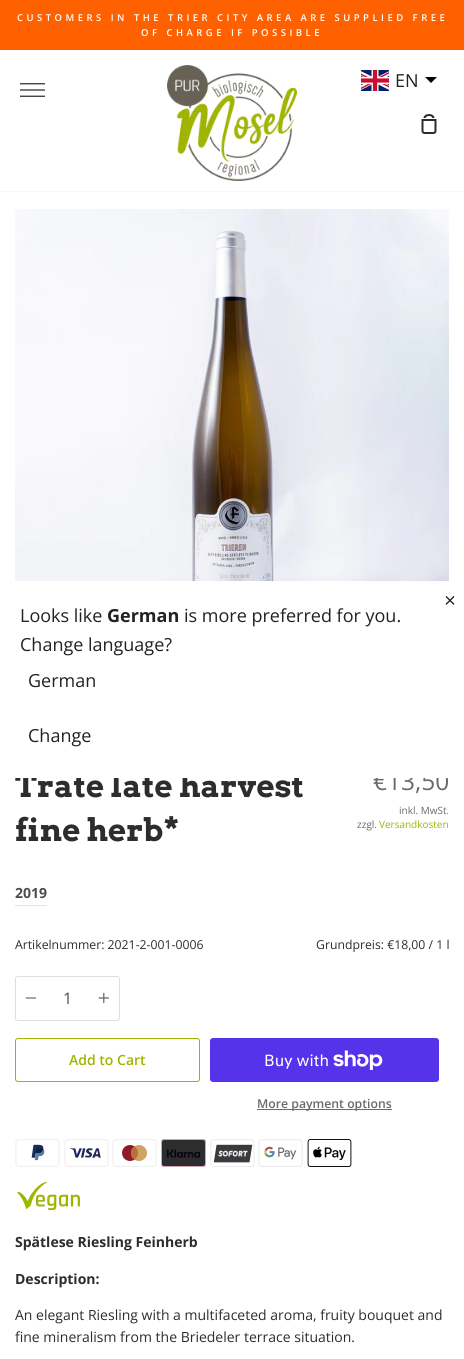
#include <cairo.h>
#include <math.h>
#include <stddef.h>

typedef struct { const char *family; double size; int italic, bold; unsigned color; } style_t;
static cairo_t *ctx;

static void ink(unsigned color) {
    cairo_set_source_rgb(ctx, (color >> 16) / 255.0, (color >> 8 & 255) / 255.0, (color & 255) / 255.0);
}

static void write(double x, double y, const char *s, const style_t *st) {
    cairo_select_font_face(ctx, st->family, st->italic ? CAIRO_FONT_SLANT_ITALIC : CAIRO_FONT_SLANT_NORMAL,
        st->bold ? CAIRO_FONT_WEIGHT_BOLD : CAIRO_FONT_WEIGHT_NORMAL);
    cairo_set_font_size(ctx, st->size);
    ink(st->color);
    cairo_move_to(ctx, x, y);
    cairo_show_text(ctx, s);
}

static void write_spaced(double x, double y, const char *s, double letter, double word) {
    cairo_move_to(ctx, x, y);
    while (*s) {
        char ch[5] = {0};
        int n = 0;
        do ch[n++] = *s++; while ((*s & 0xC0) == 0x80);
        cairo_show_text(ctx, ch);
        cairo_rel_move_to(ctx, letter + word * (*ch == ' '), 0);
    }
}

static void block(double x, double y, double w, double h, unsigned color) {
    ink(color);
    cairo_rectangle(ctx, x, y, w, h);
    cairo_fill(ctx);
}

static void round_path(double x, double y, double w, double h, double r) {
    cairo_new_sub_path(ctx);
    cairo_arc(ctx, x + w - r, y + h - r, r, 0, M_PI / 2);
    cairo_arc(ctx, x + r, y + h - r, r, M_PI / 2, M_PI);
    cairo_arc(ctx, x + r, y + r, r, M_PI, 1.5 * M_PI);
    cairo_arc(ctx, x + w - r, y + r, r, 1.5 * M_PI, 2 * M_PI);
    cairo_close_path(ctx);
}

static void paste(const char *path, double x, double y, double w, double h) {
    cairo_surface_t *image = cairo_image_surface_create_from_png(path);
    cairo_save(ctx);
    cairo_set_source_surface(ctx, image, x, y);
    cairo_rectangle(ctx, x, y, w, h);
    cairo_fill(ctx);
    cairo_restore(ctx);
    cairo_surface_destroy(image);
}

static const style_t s1 = {"Open Sans", 18, 0, 0, 0x202223};
static const style_t s2 = {"Arvo", 31.5, 0, 1, 0x2d2d2d};
static const style_t s3 = {"Open Sans", 24.5, 0, 0, 0x6a6a6a};
static const style_t s4 = {"Open Sans", 18, 0, 1, 0x202223};
static const style_t s5 = {"Open Sans", 10, 0, 0, 0x6a6a6a};
static const style_t s6 = {"Open Sans", 10, 0, 0, 0xa0b400};
static const style_t s7 = {"Open Sans", 14, 0, 1, 0x4c4c4b};
static const style_t s8 = {"Open Sans", 12.25, 0, 0, 0x2d2d2d};
static const style_t s9 = {"Open Sans", 16, 0, 0, 0x4c4c4b};
static const style_t s10 = {"Open Sans SemiBold", 14, 0, 0, 0xa0b400};
static const style_t s11 = {"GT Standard", 16, 0, 0, 0xffffff};
static const style_t s12 = {"Open Sans SemiBold", 12.25, 0, 0, 0x6a6a6a};
static const style_t s13 = {"Open Sans", 14, 0, 1, 0x2d2d2d};
static const style_t s14 = {"Open Sans", 14, 0, 0, 0x2d2d2d};

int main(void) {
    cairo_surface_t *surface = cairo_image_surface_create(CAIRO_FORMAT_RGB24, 464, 1359);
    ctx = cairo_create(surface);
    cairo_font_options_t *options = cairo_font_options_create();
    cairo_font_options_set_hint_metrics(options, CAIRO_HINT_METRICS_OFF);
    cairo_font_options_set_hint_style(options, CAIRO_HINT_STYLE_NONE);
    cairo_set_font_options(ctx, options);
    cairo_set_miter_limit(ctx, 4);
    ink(0xffffff);
    cairo_paint(ctx);
    block(0, 0, 464, 50, 0xff6100);
    cairo_select_font_face(ctx, "Open Sans SemiBold", CAIRO_FONT_SLANT_NORMAL, CAIRO_FONT_WEIGHT_NORMAL);
    cairo_set_font_size(ctx, 9.45);
    ink(0xffffff);
    write_spaced(17, 21, "CUSTOMERS IN THE TRIER CITY AREA ARE SUPPLIED FREE", 3.5, 0);
    write_spaced(141, 36, "OF CHARGE IF POSSIBLE", 3.5, 0);
    block(0, 191, 464, 1, 0xf7f8fa);
    paste("pic1.png", 20, 83, 25, 14);
    paste("pic2.png", 167, 65, 130, 116);
    paste("pic3.png", 421, 114, 16, 20);
    paste("pic4.png", 361, 70, 28, 21);
    write(395, 87, "EN", &s1);
    ink(0x000000);
    cairo_new_path(ctx);
    cairo_move_to(ctx, 425, 77);
    cairo_line_to(ctx, 437, 77);
    cairo_line_to(ctx, 431, 83);
    cairo_close_path(ctx);
    cairo_fill(ctx);
    write(15, 797, "Trate late harvest", &s2);
    write(373, 790, "€13,50", &s3);
    ink(0xffffff);
    round_path(0, 581, 464, 197, 8);
    cairo_fill(ctx);
    paste("pic5.png", 445, 596, 10, 9);
    write(20, 622, "Looks like", &s1);
    write(107, 622, "German", &s4);
    write(184, 622, "is more preferred for you.", &s1);
    write(20, 651, "Change language?", &s1);
    write(28, 687, "German", &s1);
    write(28, 742, "Change", &s1);
    paste("pic6.png", 15, 209, 434, 372);
    write(15, 841, "fine herb*", &s2);
    write(399, 814, "inkl. MwSt.", &s5);
    write(357, 828, "zzgl.", &s5);
    write(379, 828, "Versandkosten", &s6);
    write(15, 898, "2019", &s7);
    block(15, 905, 32, 1, 0xe6e2e8);
    write(15, 949, "Artikelnummer: 2021-2-001-0006", &s8);
    write(316, 949, "Grundpreis: €18,00 / 1 l", &s8);
    round_path(15.5, 976.5, 104, 44, 2.5);
    ink(0xe1dce4);
    cairo_set_line_width(ctx, 1);
    cairo_stroke(ctx);
    paste("pic7.png", 25, 997, 11, 2);
    write(63, 1004, "1", &s9);
    paste("pic8.png", 98, 992, 11, 12);
    round_path(15.5, 1038.5, 184, 43, 2.5);
    ink(0xa0b400);
    cairo_stroke(ctx);
    write(69, 1065, "Add to Cart", &s10);
    ink(0x5433eb);
    round_path(210, 1038, 229, 44, 3);
    cairo_fill(ctx);
    write(264, 1066, "Buy with", &s11);
    paste("pic9.png", 333, 1050, 50, 20);
    block(257, 1109, 135, 1, 0x6a6a6a);
    write(257, 1108, "More payment options", &s12);
    paste("pic10.png", 15, 1139, 45, 28);
    paste("pic11.png", 64, 1139, 45, 28);
    paste("pic12.png", 112, 1139, 45, 28);
    paste("pic13.png", 161, 1139, 45, 28);
    paste("pic14.png", 210, 1139, 45, 28);
    paste("pic15.png", 258, 1139, 45, 28);
    paste("pic16.png", 307, 1139, 45, 28);
    paste("pic17.png", 17, 1182, 63, 29);
    write(15, 1247, "Spätlese Riesling Feinherb", &s13);
    write(15, 1284, "Description:", &s13);
    write(15, 1320, "An elegant Riesling with a multifaceted aroma, fruity bouquet and", &s14);
    write(15, 1342, "fine mineralism from the Briedeler terrace situation.", &s14);
    cairo_surface_write_to_png(surface, "screenshot.png");
    cairo_font_options_destroy(options);
    cairo_destroy(ctx);
    cairo_surface_destroy(surface);
    return 0;
}
